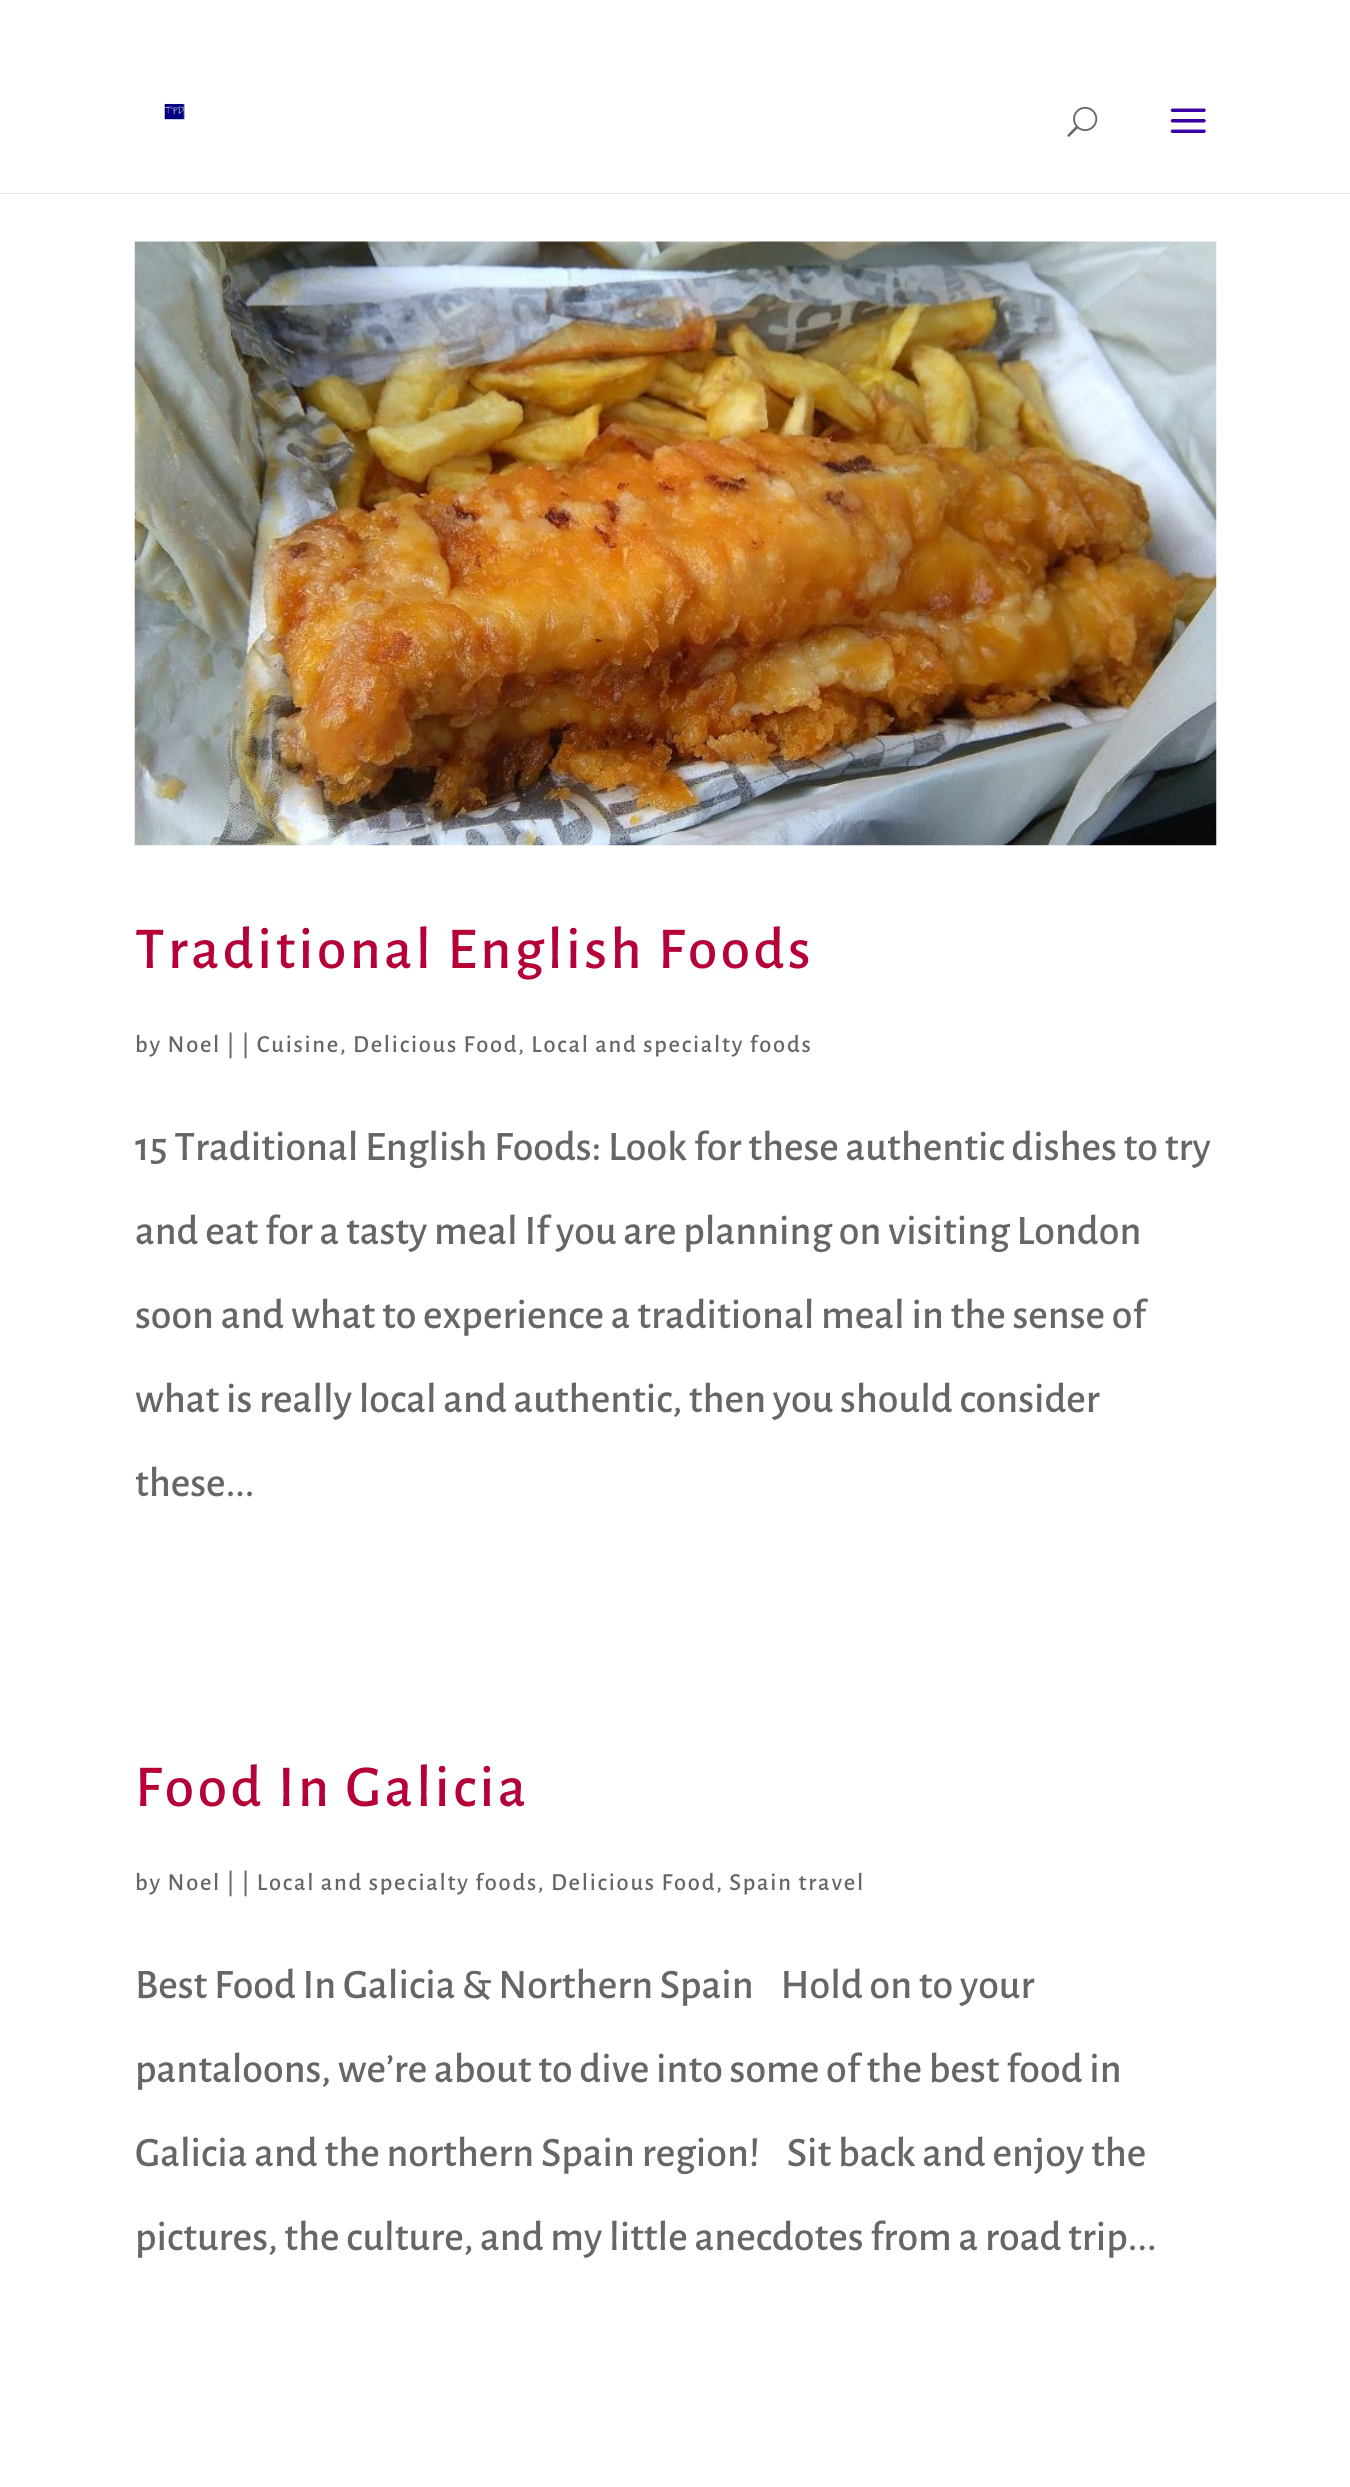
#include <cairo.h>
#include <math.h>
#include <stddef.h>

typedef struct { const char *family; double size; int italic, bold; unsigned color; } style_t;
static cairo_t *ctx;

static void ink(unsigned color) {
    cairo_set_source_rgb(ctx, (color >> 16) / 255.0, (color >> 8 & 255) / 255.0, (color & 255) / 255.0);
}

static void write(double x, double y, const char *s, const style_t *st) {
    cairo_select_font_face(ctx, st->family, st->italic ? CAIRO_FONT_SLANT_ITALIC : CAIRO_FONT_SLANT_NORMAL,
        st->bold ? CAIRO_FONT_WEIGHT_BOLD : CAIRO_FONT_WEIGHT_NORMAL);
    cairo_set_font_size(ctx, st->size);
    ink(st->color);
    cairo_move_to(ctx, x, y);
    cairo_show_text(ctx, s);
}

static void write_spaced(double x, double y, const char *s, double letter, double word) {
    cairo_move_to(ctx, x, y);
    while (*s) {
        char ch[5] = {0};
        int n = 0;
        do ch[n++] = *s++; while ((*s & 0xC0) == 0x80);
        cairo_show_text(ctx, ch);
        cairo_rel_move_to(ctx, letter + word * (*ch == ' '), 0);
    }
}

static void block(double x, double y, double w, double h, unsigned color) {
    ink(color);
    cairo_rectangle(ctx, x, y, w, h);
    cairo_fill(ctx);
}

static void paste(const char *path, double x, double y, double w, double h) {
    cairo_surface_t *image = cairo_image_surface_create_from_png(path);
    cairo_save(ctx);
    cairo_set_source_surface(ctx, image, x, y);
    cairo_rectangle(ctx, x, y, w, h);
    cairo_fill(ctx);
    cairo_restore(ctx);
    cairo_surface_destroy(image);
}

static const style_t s1 = {"Alegreya Sans Medium", 42, 0, 0, 0x666666};

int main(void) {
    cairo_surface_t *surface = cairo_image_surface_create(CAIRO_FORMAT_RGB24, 1350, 2487);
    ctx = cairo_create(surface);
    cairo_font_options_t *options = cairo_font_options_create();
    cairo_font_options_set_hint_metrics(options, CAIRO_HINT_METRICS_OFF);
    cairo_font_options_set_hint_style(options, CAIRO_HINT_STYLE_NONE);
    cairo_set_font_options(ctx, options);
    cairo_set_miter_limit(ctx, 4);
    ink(0xffffff);
    cairo_paint(ctx);
    block(0, 193, 1350, 1, 0xe6e6e6);
    paste("pic1.png", 164, 103, 21, 17);
    paste("pic2.png", 1067, 106, 31, 31);
    paste("pic3.png", 1170, 108, 36, 25);
    paste("pic4.png", 134, 241, 1083, 605);
    cairo_select_font_face(ctx, "Alegreya Sans Medium", CAIRO_FONT_SLANT_NORMAL, CAIRO_FONT_WEIGHT_NORMAL);
    cairo_set_font_size(ctx, 59.5);
    ink(0xb50137);
    write_spaced(135, 968, "Traditional English Foods", 3.5, 0);
    cairo_set_font_size(ctx, 24.5);
    ink(0x666666);
    write_spaced(135, 1052, "by Noel | | Cuisine, Delicious Food, Local and specialty foods", 1.75, 0);
    write(135, 1160, "15 Traditional English Foods: Look for these authentic dishes to try", &s1);
    write(135, 1244, "and eat for a tasty meal If you are planning on visiting London", &s1);
    write(135, 1328, "soon and what to experience a traditional meal in the sense of", &s1);
    write(135, 1412, "what is really local and authentic, then you should consider", &s1);
    write(135, 1496, "these...", &s1);
    cairo_set_font_size(ctx, 59.5);
    ink(0xb50137);
    write_spaced(135, 1806, "Food In Galicia", 3.5, 0);
    cairo_set_font_size(ctx, 24.5);
    ink(0x666666);
    write_spaced(135, 1890, "by Noel | | Local and specialty foods, Delicious Food, Spain travel", 1.75, 0);
    write(135, 1998, "Best Food In Galicia & Northern Spain    Hold on to your", &s1);
    write(135, 2082, "pantaloons, we’re about to dive into some of the best food in", &s1);
    write(135, 2166, "Galicia and the northern Spain region!    Sit back and enjoy the", &s1);
    write(135, 2250, "pictures, the culture, and my little anecdotes from a road trip...", &s1);
    cairo_surface_write_to_png(surface, "screenshot.png");
    cairo_font_options_destroy(options);
    cairo_destroy(ctx);
    cairo_surface_destroy(surface);
    return 0;
}
